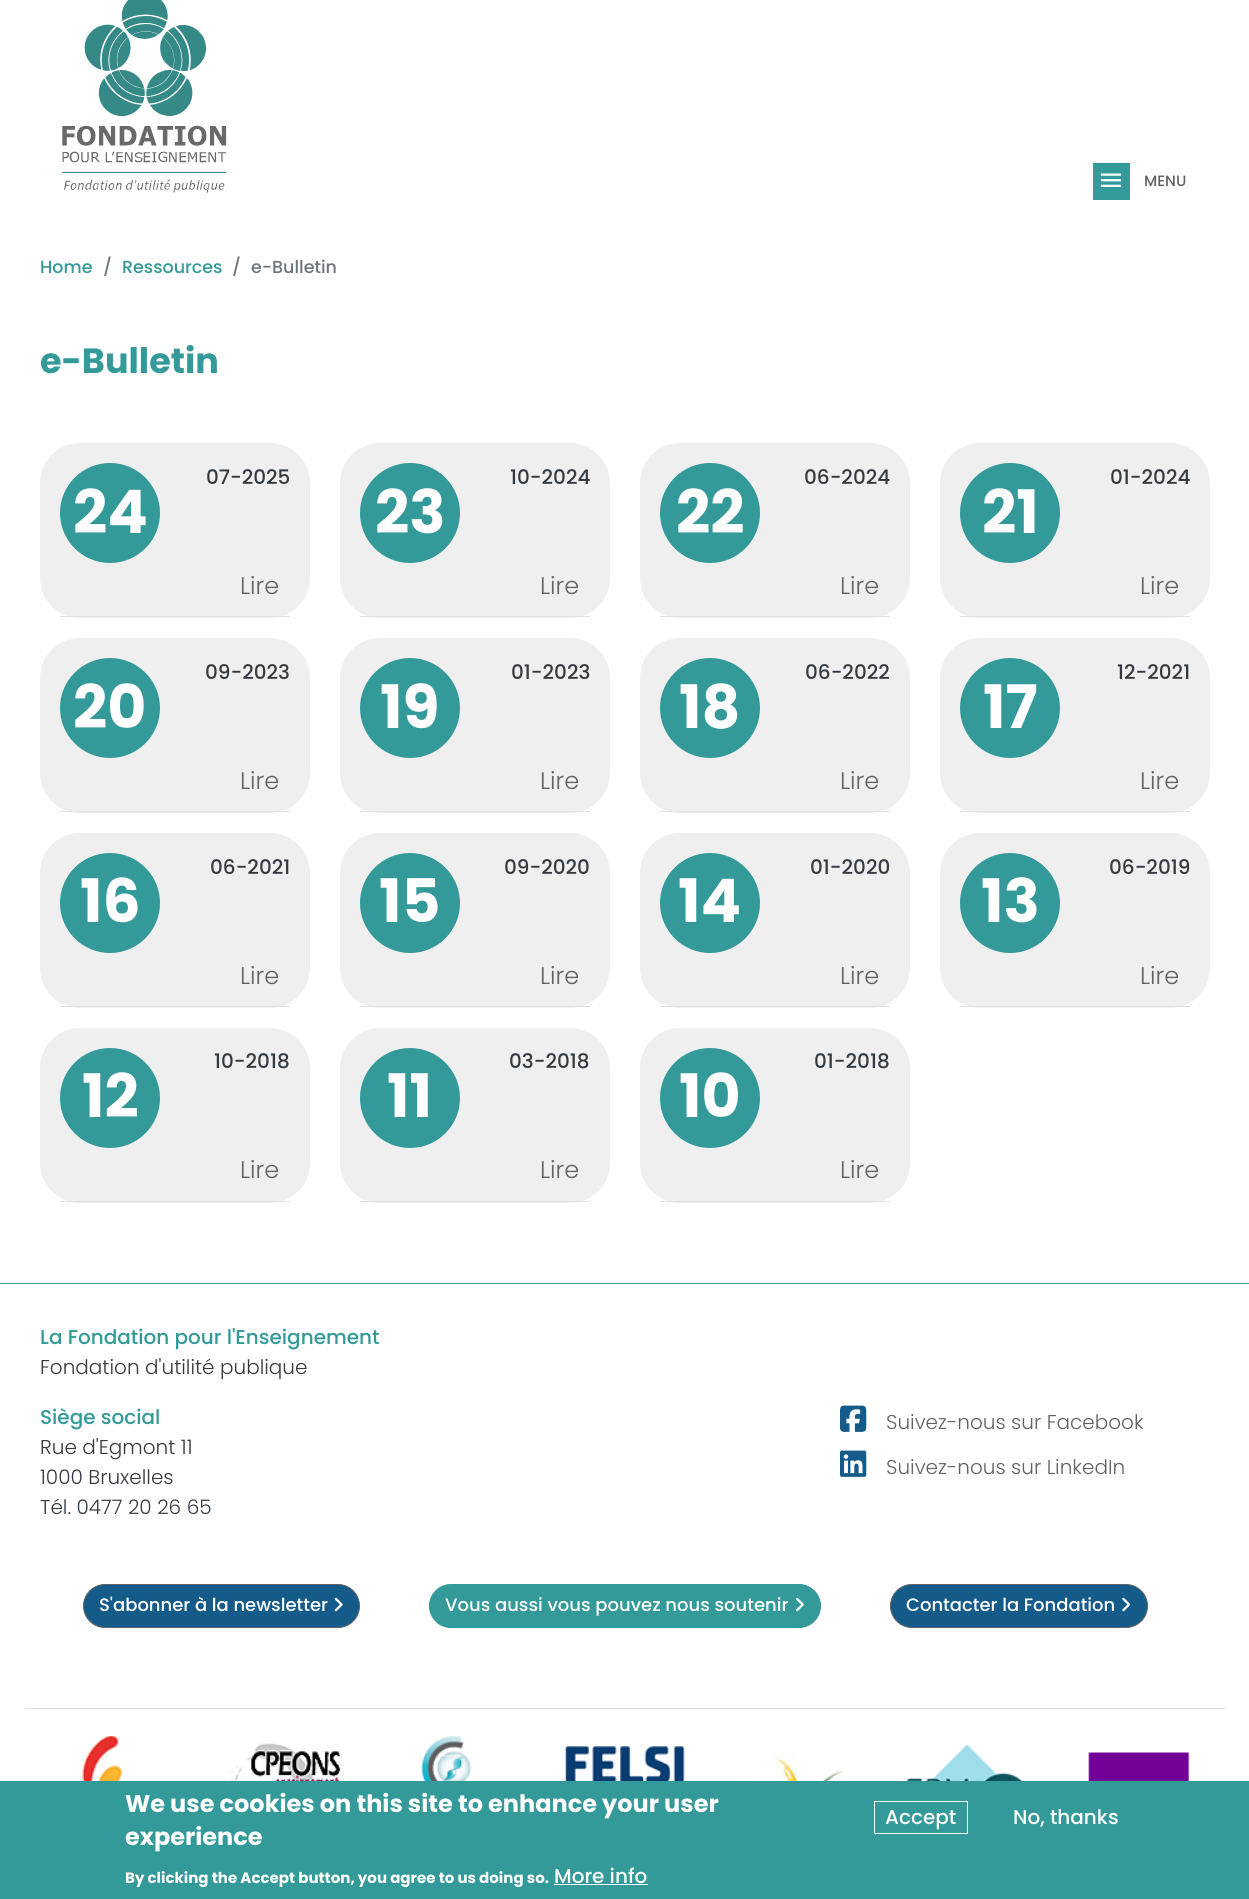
#include <cairo.h>
#include <math.h>
#include <stddef.h>

typedef struct { const char *family; double size; int italic, bold; unsigned color; } style_t;
static cairo_t *ctx;

static void ink(unsigned color) {
    cairo_set_source_rgb(ctx, (color >> 16) / 255.0, (color >> 8 & 255) / 255.0, (color & 255) / 255.0);
}

static void write(double x, double y, const char *s, const style_t *st) {
    cairo_select_font_face(ctx, st->family, st->italic ? CAIRO_FONT_SLANT_ITALIC : CAIRO_FONT_SLANT_NORMAL,
        st->bold ? CAIRO_FONT_WEIGHT_BOLD : CAIRO_FONT_WEIGHT_NORMAL);
    cairo_set_font_size(ctx, st->size);
    ink(st->color);
    cairo_move_to(ctx, x, y);
    cairo_show_text(ctx, s);
}

static void block(double x, double y, double w, double h, unsigned color) {
    ink(color);
    cairo_rectangle(ctx, x, y, w, h);
    cairo_fill(ctx);
}

static void round_path(double x, double y, double w, double h, double r) {
    cairo_new_sub_path(ctx);
    cairo_arc(ctx, x + w - r, y + h - r, r, 0, M_PI / 2);
    cairo_arc(ctx, x + r, y + h - r, r, M_PI / 2, M_PI);
    cairo_arc(ctx, x + r, y + r, r, M_PI, 1.5 * M_PI);
    cairo_arc(ctx, x + w - r, y + r, r, 1.5 * M_PI, 2 * M_PI);
    cairo_close_path(ctx);
}

static void paste(const char *path, double x, double y, double w, double h) {
    cairo_surface_t *image = cairo_image_surface_create_from_png(path);
    cairo_save(ctx);
    cairo_set_source_surface(ctx, image, x, y);
    cairo_rectangle(ctx, x, y, w, h);
    cairo_fill(ctx);
    cairo_restore(ctx);
    cairo_surface_destroy(image);
}

static const style_t s1 = {"Poppins Medium", 15, 0, 0, 0x626262};
static const style_t s2 = {"Poppins Medium", 17.5, 0, 0, 0x339999};
static const style_t s3 = {"Poppins Medium", 17.5, 0, 0, 0x6c757d};
static const style_t s4 = {"Poppins", 35, 0, 1, 0x339999};
static const style_t s5 = {"Poppins Medium", 20, 0, 0, 0x343a40};
static const style_t s6 = {"Poppins", 60, 0, 1, 0xffffff};
static const style_t s7 = {"Poppins Light", 24, 0, 0, 0x626262};
static const style_t s8 = {"Poppins Medium", 20, 0, 0, 0x339999};
static const style_t s9 = {"Poppins Light", 20, 0, 0, 0x343a40};
static const style_t s10 = {"Poppins Light", 20, 0, 0, 0x626262};
static const style_t s11 = {"Poppins Medium", 18, 0, 0, 0xffffff};
static const style_t s12 = {"Poppins", 24, 0, 1, 0xffffff};
static const style_t s13 = {"Poppins", 15, 0, 1, 0xffffff};
static const style_t s14 = {"Poppins Medium", 20, 0, 0, 0xffffff};

int main(void) {
    cairo_surface_t *surface = cairo_image_surface_create(CAIRO_FORMAT_RGB24, 1249, 1899);
    ctx = cairo_create(surface);
    cairo_font_options_t *options = cairo_font_options_create();
    cairo_font_options_set_hint_metrics(options, CAIRO_HINT_METRICS_OFF);
    cairo_font_options_set_hint_style(options, CAIRO_HINT_STYLE_NONE);
    cairo_set_font_options(ctx, options);
    cairo_set_miter_limit(ctx, 4);
    ink(0xffffff);
    cairo_paint(ctx);
    paste("pic1.png", 62, 0, 165, 193);
    block(1093, 163, 37, 37, 0x339999);
    paste("pic2.png", 1100, 173, 22, 14);
    write(1144, 186, "MENU", &s1);
    write(40, 273, "Home", &s2);
    write(103, 273, "/", &s3);
    write(122, 273, "Ressources", &s2);
    write(232, 273, "/", &s3);
    write(251, 273, "e-Bulletin", &s3);
    write(40, 373, "e-Bulletin", &s4);
    ink(0xefefef);
    round_path(40, 443, 270, 175, 40);
    cairo_fill(ctx);
    block(60, 616, 230, 1, 0xdee2e6);
    write(206, 484, "07-2025", &s5);
    ink(0x339999);
    cairo_new_path(ctx);
    cairo_arc(ctx, 110, 513, 50, 0, 2 * M_PI);
    cairo_fill(ctx);
    write(73, 533, "24", &s6);
    write(240, 594, "Lire", &s7);
    ink(0xefefef);
    round_path(340, 443, 270, 175, 40);
    cairo_fill(ctx);
    block(360, 616, 230, 1, 0xdee2e6);
    write(510, 484, "10-2024", &s5);
    ink(0x339999);
    cairo_new_path(ctx);
    cairo_arc(ctx, 410, 513, 50, 0, 2 * M_PI);
    cairo_fill(ctx);
    write(375, 533, "23", &s6);
    write(540, 594, "Lire", &s7);
    ink(0xefefef);
    round_path(640, 443, 270, 175, 40);
    cairo_fill(ctx);
    block(660, 616, 230, 1, 0xdee2e6);
    write(804, 484, "06-2024", &s5);
    ink(0x339999);
    cairo_new_path(ctx);
    cairo_arc(ctx, 710, 513, 50, 0, 2 * M_PI);
    cairo_fill(ctx);
    write(676, 533, "22", &s6);
    write(840, 594, "Lire", &s7);
    ink(0xefefef);
    round_path(940, 443, 270, 175, 40);
    cairo_fill(ctx);
    block(960, 616, 230, 1, 0xdee2e6);
    write(1110, 484, "01-2024", &s5);
    ink(0x339999);
    cairo_new_path(ctx);
    cairo_arc(ctx, 1010, 513, 50, 0, 2 * M_PI);
    cairo_fill(ctx);
    write(982, 533, "21", &s6);
    write(1140, 594, "Lire", &s7);
    ink(0xefefef);
    round_path(40, 638, 270, 175, 40);
    cairo_fill(ctx);
    block(60, 811, 230, 1, 0xdee2e6);
    write(205, 679, "09-2023", &s5);
    ink(0x339999);
    cairo_new_path(ctx);
    cairo_arc(ctx, 110, 708, 50, 0, 2 * M_PI);
    cairo_fill(ctx);
    write(73, 728, "20", &s6);
    write(240, 789, "Lire", &s7);
    ink(0xefefef);
    round_path(340, 638, 270, 175, 40);
    cairo_fill(ctx);
    block(360, 811, 230, 1, 0xdee2e6);
    write(511, 679, "01-2023", &s5);
    ink(0x339999);
    cairo_new_path(ctx);
    cairo_arc(ctx, 410, 708, 50, 0, 2 * M_PI);
    cairo_fill(ctx);
    write(380, 728, "19", &s6);
    write(540, 789, "Lire", &s7);
    ink(0xefefef);
    round_path(640, 638, 270, 175, 40);
    cairo_fill(ctx);
    block(660, 811, 230, 1, 0xdee2e6);
    write(805, 679, "06-2022", &s5);
    ink(0x339999);
    cairo_new_path(ctx);
    cairo_arc(ctx, 710, 708, 50, 0, 2 * M_PI);
    cairo_fill(ctx);
    write(679, 728, "18", &s6);
    write(840, 789, "Lire", &s7);
    ink(0xefefef);
    round_path(940, 638, 270, 175, 40);
    cairo_fill(ctx);
    block(960, 811, 230, 1, 0xdee2e6);
    write(1117, 679, "12-2021", &s5);
    ink(0x339999);
    cairo_new_path(ctx);
    cairo_arc(ctx, 1010, 708, 50, 0, 2 * M_PI);
    cairo_fill(ctx);
    write(983, 728, "17", &s6);
    write(1140, 789, "Lire", &s7);
    ink(0xefefef);
    round_path(40, 833, 270, 175, 40);
    cairo_fill(ctx);
    block(60, 1006, 230, 1, 0xdee2e6);
    write(210, 874, "06-2021", &s5);
    ink(0x339999);
    cairo_new_path(ctx);
    cairo_arc(ctx, 110, 903, 50, 0, 2 * M_PI);
    cairo_fill(ctx);
    write(80, 922, "16", &s6);
    write(240, 984, "Lire", &s7);
    ink(0xefefef);
    round_path(340, 833, 270, 175, 40);
    cairo_fill(ctx);
    block(360, 1006, 230, 1, 0xdee2e6);
    write(504, 874, "09-2020", &s5);
    ink(0x339999);
    cairo_new_path(ctx);
    cairo_arc(ctx, 410, 903, 50, 0, 2 * M_PI);
    cairo_fill(ctx);
    write(379, 922, "15", &s6);
    write(540, 984, "Lire", &s7);
    ink(0xefefef);
    round_path(640, 833, 270, 175, 40);
    cairo_fill(ctx);
    block(660, 1006, 230, 1, 0xdee2e6);
    write(810, 874, "01-2020", &s5);
    ink(0x339999);
    cairo_new_path(ctx);
    cairo_arc(ctx, 710, 903, 50, 0, 2 * M_PI);
    cairo_fill(ctx);
    write(678, 922, "14", &s6);
    write(840, 984, "Lire", &s7);
    ink(0xefefef);
    round_path(940, 833, 270, 175, 40);
    cairo_fill(ctx);
    block(960, 1006, 230, 1, 0xdee2e6);
    write(1109, 874, "06-2019", &s5);
    ink(0x339999);
    cairo_new_path(ctx);
    cairo_arc(ctx, 1010, 903, 50, 0, 2 * M_PI);
    cairo_fill(ctx);
    write(981, 922, "13", &s6);
    write(1140, 984, "Lire", &s7);
    ink(0xefefef);
    round_path(40, 1028, 270, 175, 40);
    cairo_fill(ctx);
    block(60, 1201, 230, 1, 0xdee2e6);
    write(214, 1068, "10-2018", &s5);
    ink(0x339999);
    cairo_new_path(ctx);
    cairo_arc(ctx, 110, 1098, 50, 0, 2 * M_PI);
    cairo_fill(ctx);
    write(82, 1117, "12", &s6);
    write(240, 1178, "Lire", &s7);
    ink(0xefefef);
    round_path(340, 1028, 270, 175, 40);
    cairo_fill(ctx);
    block(360, 1201, 230, 1, 0xdee2e6);
    write(509, 1068, "03-2018", &s5);
    ink(0x339999);
    cairo_new_path(ctx);
    cairo_arc(ctx, 410, 1098, 50, 0, 2 * M_PI);
    cairo_fill(ctx);
    write(387, 1117, "11", &s6);
    write(540, 1178, "Lire", &s7);
    ink(0xefefef);
    round_path(640, 1028, 270, 175, 40);
    cairo_fill(ctx);
    block(660, 1201, 230, 1, 0xdee2e6);
    write(814, 1068, "01-2018", &s5);
    ink(0x339999);
    cairo_new_path(ctx);
    cairo_arc(ctx, 710, 1098, 50, 0, 2 * M_PI);
    cairo_fill(ctx);
    write(679, 1117, "10", &s6);
    write(840, 1178, "Lire", &s7);
    block(0, 1283, 1249, 1, 0x339999);
    write(40, 1344, "La Fondation pour l'Enseignement", &s8);
    write(40, 1374, "Fondation d'utilité publique", &s9);
    write(40, 1424, "Siège social", &s8);
    write(40, 1454, "Rue d'Egmont 11", &s9);
    write(40, 1484, "1000 Bruxelles", &s9);
    write(40, 1514, "Tél. 0477 20 26 65", &s9);
    paste("pic3.png", 840, 1405, 27, 27);
    write(886, 1429, "Suivez-nous sur Facebook", &s10);
    paste("pic4.png", 840, 1450, 27, 27);
    write(886, 1474, "Suivez-nous sur LinkedIn", &s10);
    ink(0x155b8a);
    round_path(83.5, 1584.5, 276, 43, 21.5);
    cairo_fill_preserve(ctx);
    ink(0x626262);
    cairo_set_line_width(ctx, 1);
    cairo_stroke(ctx);
    write(99, 1611, "S'abonner à la newsletter", &s11);
    paste("pic5.png", 334, 1597, 9, 15);
    ink(0x339999);
    round_path(429.5, 1584.5, 391, 43, 21.5);
    cairo_fill_preserve(ctx);
    cairo_stroke(ctx);
    write(445, 1611, "Vous aussi vous pouvez nous soutenir", &s11);
    paste("pic6.png", 796, 1597, 8, 15);
    ink(0x155b8a);
    round_path(890.5, 1584.5, 257, 43, 21.5);
    cairo_fill_preserve(ctx);
    ink(0x626262);
    cairo_stroke(ctx);
    write(906, 1611, "Contacter la Fondation", &s11);
    paste("pic7.png", 1122, 1597, 9, 15);
    block(25, 1708, 1200, 1, 0xdee2e6);
    paste("pic8.png", 48, 1736, 126, 45);
    paste("pic9.png", 226, 1743, 116, 38);
    paste("pic10.png", 421, 1736, 51, 45);
    paste("pic11.png", 564, 1746, 121, 35);
    paste("pic12.png", 732, 1752, 129, 29);
    paste("pic13.png", 907, 1743, 116, 38);
    paste("pic14.png", 1088, 1752, 102, 29);
    block(0, 1781, 1249, 118, 0x339999);
    write(125, 1812, "We use cookies on this site to enhance your user", &s12);
    write(125, 1845, "experience", &s12);
    write(125, 1883, "By clicking the Accept button, you agree to us doing so.", &s13);
    write(554, 1883, "More info", &s14);
    block(554, 1884, 94, 1, 0xffffff);
    cairo_rectangle(ctx, 874.5, 1801.5, 93, 32);
    cairo_stroke(ctx);
    write(885, 1824, "Accept", &s14);
    write(1013, 1824, "No, thanks", &s14);
    cairo_surface_write_to_png(surface, "screenshot.png");
    cairo_font_options_destroy(options);
    cairo_destroy(ctx);
    cairo_surface_destroy(surface);
    return 0;
}
